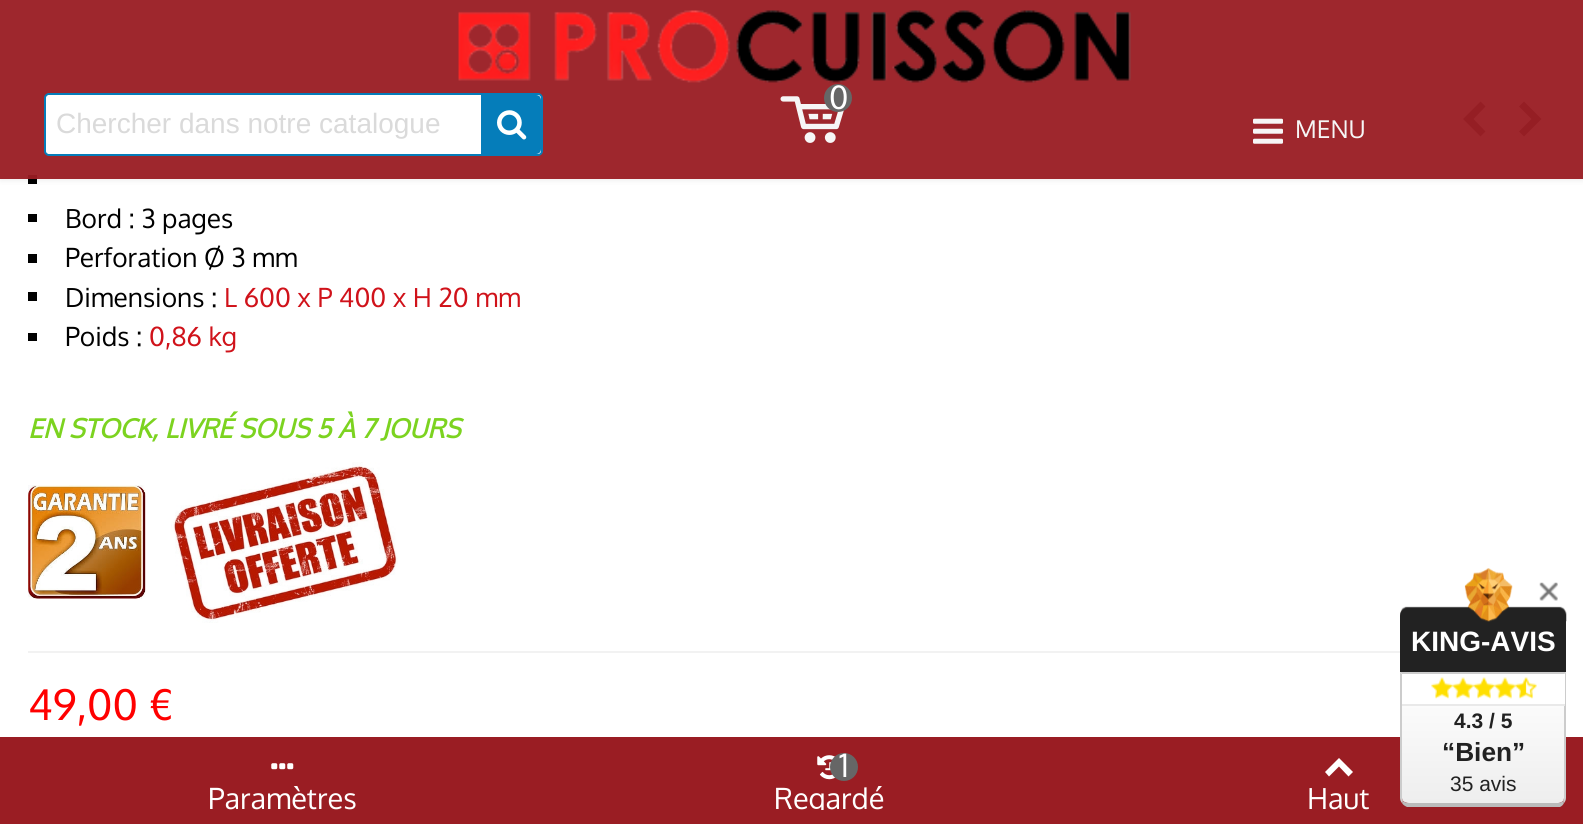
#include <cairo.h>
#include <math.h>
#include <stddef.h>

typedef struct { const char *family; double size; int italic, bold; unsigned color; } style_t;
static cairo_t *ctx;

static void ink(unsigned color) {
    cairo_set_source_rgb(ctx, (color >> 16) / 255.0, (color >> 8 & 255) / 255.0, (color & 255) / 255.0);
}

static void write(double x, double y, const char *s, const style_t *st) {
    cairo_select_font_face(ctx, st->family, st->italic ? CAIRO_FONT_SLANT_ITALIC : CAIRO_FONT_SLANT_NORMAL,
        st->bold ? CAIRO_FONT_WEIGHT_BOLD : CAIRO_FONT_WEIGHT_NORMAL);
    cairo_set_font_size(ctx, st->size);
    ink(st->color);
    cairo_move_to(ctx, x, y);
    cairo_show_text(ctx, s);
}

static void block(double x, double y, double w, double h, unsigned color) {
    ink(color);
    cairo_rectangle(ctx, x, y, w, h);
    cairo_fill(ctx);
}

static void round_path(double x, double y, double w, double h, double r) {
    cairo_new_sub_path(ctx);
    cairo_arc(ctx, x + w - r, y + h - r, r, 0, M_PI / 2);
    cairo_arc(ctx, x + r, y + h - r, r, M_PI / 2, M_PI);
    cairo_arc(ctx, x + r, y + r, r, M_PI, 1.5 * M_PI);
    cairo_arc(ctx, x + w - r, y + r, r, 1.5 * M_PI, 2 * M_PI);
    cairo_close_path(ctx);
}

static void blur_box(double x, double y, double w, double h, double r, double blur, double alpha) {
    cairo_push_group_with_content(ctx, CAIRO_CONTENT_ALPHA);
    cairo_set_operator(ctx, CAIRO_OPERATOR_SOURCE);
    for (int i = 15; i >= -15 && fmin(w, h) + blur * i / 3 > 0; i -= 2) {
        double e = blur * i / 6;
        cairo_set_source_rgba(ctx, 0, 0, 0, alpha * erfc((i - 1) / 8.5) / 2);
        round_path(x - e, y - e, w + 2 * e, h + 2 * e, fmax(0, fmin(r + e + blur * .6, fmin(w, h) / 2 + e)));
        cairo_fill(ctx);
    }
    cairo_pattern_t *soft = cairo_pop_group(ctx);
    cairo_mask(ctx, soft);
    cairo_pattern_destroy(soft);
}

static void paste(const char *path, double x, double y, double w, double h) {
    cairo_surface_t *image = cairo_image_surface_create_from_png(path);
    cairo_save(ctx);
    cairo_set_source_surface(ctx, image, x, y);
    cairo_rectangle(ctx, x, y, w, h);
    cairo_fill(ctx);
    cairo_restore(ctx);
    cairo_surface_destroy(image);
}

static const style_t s1 = {"Oxygen", 32, 0, 0, 0xffffff};
static const style_t s2 = {"Liberation Sans", 28, 0, 0, 0xdadada};
static const style_t s3 = {"Oxygen", 24.5, 0, 0, 0xf6f6f6};
static const style_t s4 = {"Oxygen", 26.25, 0, 0, 0x000000};
static const style_t s5 = {"Oxygen", 26.25, 0, 0, 0xd0121a};
static const style_t s6 = {"Oxygen", 26.25, 1, 1, 0x7cd320};
static const style_t s7 = {"Oxygen", 42, 0, 0, 0xff0000};
static const style_t s8 = {"Oxygen", 29, 0, 0, 0xffffff};
static const style_t s9 = {"Liberation Sans", 28, 0, 1, 0xffffff};
static const style_t s10 = {"Liberation Sans", 21, 0, 1, 0x222222};
static const style_t s11 = {"Liberation Sans", 26.25, 0, 1, 0x222222};
static const style_t s12 = {"Liberation Sans", 21, 0, 0, 0x222222};

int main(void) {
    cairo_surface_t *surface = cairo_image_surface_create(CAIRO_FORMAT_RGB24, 1583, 824);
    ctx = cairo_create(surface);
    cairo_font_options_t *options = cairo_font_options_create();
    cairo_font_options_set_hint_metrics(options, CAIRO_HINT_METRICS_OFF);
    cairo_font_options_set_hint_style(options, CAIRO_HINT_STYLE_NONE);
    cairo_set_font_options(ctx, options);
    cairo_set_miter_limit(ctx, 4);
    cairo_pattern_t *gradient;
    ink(0xffffff);
    cairo_paint(ctx);
    ink(0x444444);
    cairo_new_path(ctx);
    cairo_move_to(ctx, 1463, 119);
    cairo_line_to(ctx, 1480.5, 101.5);
    cairo_line_to(ctx, 1485.5, 106.5);
    cairo_line_to(ctx, 1473.5, 119);
    cairo_line_to(ctx, 1485.5, 131.5);
    cairo_line_to(ctx, 1480.5, 136.5);
    cairo_close_path(ctx);
    cairo_fill(ctx);
    cairo_new_path(ctx);
    cairo_move_to(ctx, 1519, 131.5);
    cairo_line_to(ctx, 1531.5, 119);
    cairo_line_to(ctx, 1519, 106.5);
    cairo_line_to(ctx, 1524, 101.5);
    cairo_line_to(ctx, 1541.5, 119);
    cairo_line_to(ctx, 1524, 136.5);
    cairo_close_path(ctx);
    cairo_fill(ctx);
    block(28, 175, 9, 9, 0x000000);
    cairo_save(ctx);
    cairo_set_fill_rule(ctx, CAIRO_FILL_RULE_EVEN_ODD);
    cairo_new_path(ctx);
    cairo_move_to(ctx, 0, 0);
    cairo_line_to(ctx, 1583, 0);
    cairo_line_to(ctx, 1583, 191);
    cairo_line_to(ctx, 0, 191);
    cairo_close_path(ctx);
    cairo_move_to(ctx, 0, 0);
    cairo_line_to(ctx, 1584, 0);
    cairo_line_to(ctx, 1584, 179);
    cairo_line_to(ctx, 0, 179);
    cairo_close_path(ctx);
    cairo_clip(ctx);
    ink(0x000000);
    blur_box(0, 0, 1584, 179, 0, 3.5, 0.1);
    cairo_restore(ctx);
    cairo_set_source_rgba(ctx, 0.604, 0.114, 0.137, 0.95);
    cairo_rectangle(ctx, 0, 0, 1583, 179);
    cairo_fill(ctx);
    paste("pic1.png", 458, 10, 673, 73);
    paste("pic2.png", 780, 96, 64, 47);
    ink(0x666666);
    cairo_arc(ctx, 838, 98, 14, 0, 2 * M_PI);
    cairo_fill(ctx);
    write(829, 109, "0", &s1);
    round_path(45, 94, 497, 61, 4);
    cairo_fill_preserve(ctx);
    ink(0x057dba);
    cairo_stroke(ctx);
    ink(0xffffff);
    cairo_new_path(ctx);
    cairo_move_to(ctx, 51, 95);
    cairo_line_to(ctx, 481, 95);
    cairo_line_to(ctx, 481, 154);
    cairo_line_to(ctx, 51, 154);
    cairo_curve_to(ctx, 48, 154, 46, 152, 46, 149);
    cairo_line_to(ctx, 46, 100);
    cairo_curve_to(ctx, 46, 97, 48, 95, 51, 95);
    cairo_close_path(ctx);
    cairo_fill(ctx);
    write(56, 133, "Chercher dans notre catalogue", &s2);
    ink(0x057dba);
    cairo_new_path(ctx);
    cairo_move_to(ctx, 481, 95);
    cairo_line_to(ctx, 536, 95);
    cairo_curve_to(ctx, 539, 95, 541, 97, 541, 100);
    cairo_line_to(ctx, 541, 149);
    cairo_curve_to(ctx, 541, 152, 539, 154, 536, 154);
    cairo_line_to(ctx, 481, 154);
    cairo_close_path(ctx);
    cairo_fill(ctx);
    paste("pic3.png", 497, 110, 30, 30);
    paste("pic4.png", 1253, 118, 30, 26);
    write(1295, 138, "MENU", &s3);
    block(28, 214, 9, 8, 0x000000);
    write(65, 228, "Bord : 3 pages", &s4);
    block(28, 254, 9, 9, 0x000000);
    write(65, 267, "Perforation Ø 3 mm", &s4);
    block(28, 292, 9, 9, 0x000000);
    write(65, 307, "Dimensions :", &s4);
    write(224, 307, "L 600 x P 400 x H 20 mm", &s5);
    block(28, 333, 9, 8, 0x000000);
    write(65, 346, "Poids :", &s4);
    write(149, 346, "0,86 kg", &s5);
    write(28, 438, "EN STOCK, LIVRÉ SOUS 5 À 7 JOURS", &s6);
    paste("pic5.png", 28, 485, 118, 114);
    paste("pic6.png", 171, 462, 227, 161);
    block(28, 651, 1372, 2, 0xf2f2f2);
    write(28, 720, "49,00 €", &s7);
    block(0, 737, 1583, 87, 0x9a1d23);
    paste("pic7.png", 271, 763, 23, 7);
    cairo_save(ctx);
    cairo_rectangle(ctx, 0, 786, 565, 24);
    cairo_clip(ctx);
    write(208, 809, "Paramètres", &s8);
    cairo_restore(ctx);
    paste("pic8.png", 817, 755, 19, 25);
    ink(0x666666);
    cairo_arc(ctx, 844, 767, 14, 0, 2 * M_PI);
    cairo_fill(ctx);
    write(839, 777, "1", &s1);
    cairo_save(ctx);
    cairo_rectangle(ctx, 565, 786, 529, 24);
    cairo_clip(ctx);
    write(774, 809, "Regardé", &s8);
    cairo_restore(ctx);
    cairo_new_path(ctx);
    cairo_move_to(ctx, 1325, 772);
    cairo_line_to(ctx, 1339, 758);
    cairo_line_to(ctx, 1353, 772);
    cairo_line_to(ctx, 1348.5, 776.5);
    cairo_line_to(ctx, 1339, 766.5);
    cairo_line_to(ctx, 1329, 776.5);
    cairo_close_path(ctx);
    cairo_fill(ctx);
    write(1307, 809, "Haut", &s8);
    block(1400, 621, 166, 51, 0x222222);
    paste("pic9.png", 1400, 568, 167, 54);
    write(1411, 651, "KING-AVIS", &s9);
    gradient = cairo_pattern_create_linear(1483, 674, 1483, 803);
    cairo_pattern_add_color_stop_rgba(gradient, 0, 1, 1, 1, 1);
    cairo_pattern_add_color_stop_rgba(gradient, 1, 0.933, 0.933, 0.933, 1);
    cairo_set_source(ctx, gradient);
    cairo_pattern_destroy(gradient);
    cairo_new_path(ctx);
    cairo_move_to(ctx, 1402, 674);
    cairo_line_to(ctx, 1564, 674);
    cairo_line_to(ctx, 1564, 798);
    cairo_curve_to(ctx, 1564, 801, 1561, 803, 1558, 803);
    cairo_line_to(ctx, 1409, 803);
    cairo_curve_to(ctx, 1405, 803, 1402, 801, 1402, 798);
    cairo_close_path(ctx);
    cairo_fill(ctx);
    ink(0xcccccc);
    cairo_new_path(ctx);
    cairo_move_to(ctx, 1400, 672);
    cairo_line_to(ctx, 1402, 674);
    cairo_line_to(ctx, 1564, 674);
    cairo_line_to(ctx, 1566, 672);
    cairo_close_path(ctx);
    cairo_fill(ctx);
    cairo_new_path(ctx);
    cairo_move_to(ctx, 1566, 672);
    cairo_line_to(ctx, 1566, 798);
    cairo_curve_to(ctx, 1566, 800, 1565, 802, 1564, 803);
    cairo_line_to(ctx, 1563, 801);
    cairo_line_to(ctx, 1564, 798);
    cairo_line_to(ctx, 1564, 674);
    cairo_close_path(ctx);
    cairo_fill(ctx);
    ink(0xbbbbbb);
    cairo_new_path(ctx);
    cairo_move_to(ctx, 1407, 807);
    cairo_curve_to(ctx, 1405, 806, 1403, 805, 1402, 803);
    cairo_line_to(ctx, 1403, 801);
    cairo_curve_to(ctx, 1404, 802, 1406, 803, 1409, 803);
    cairo_line_to(ctx, 1558, 803);
    cairo_curve_to(ctx, 1560, 803, 1562, 802, 1563, 801);
    cairo_line_to(ctx, 1564, 803);
    cairo_curve_to(ctx, 1563, 805, 1562, 806, 1560, 807);
    cairo_close_path(ctx);
    cairo_fill(ctx);
    ink(0xcccccc);
    cairo_new_path(ctx);
    cairo_move_to(ctx, 1402, 674);
    cairo_line_to(ctx, 1400, 672);
    cairo_line_to(ctx, 1400, 798);
    cairo_curve_to(ctx, 1400, 800, 1401, 802, 1402, 803);
    cairo_line_to(ctx, 1403, 801);
    cairo_line_to(ctx, 1402, 798);
    cairo_close_path(ctx);
    cairo_fill(ctx);
    paste("pic10.png", 1539, 582, 19, 19);
    block(1402, 674, 163, 30, 0xffffff);
    block(1402, 704, 163, 2, 0xe9e9e9);
    paste("pic11.png", 1431, 677, 22, 22);
    paste("pic12.png", 1452, 677, 22, 22);
    paste("pic13.png", 1473, 677, 22, 22);
    paste("pic12.png", 1494, 677, 22, 22);
    paste("pic14.png", 1515, 677, 22, 22);
    write(1454, 728, "4.3 / 5", &s10);
    write(1442, 761, "“Bien”", &s11);
    write(1450, 791, "35 avis", &s12);
    cairo_surface_write_to_png(surface, "screenshot.png");
    cairo_font_options_destroy(options);
    cairo_destroy(ctx);
    cairo_surface_destroy(surface);
    return 0;
}
